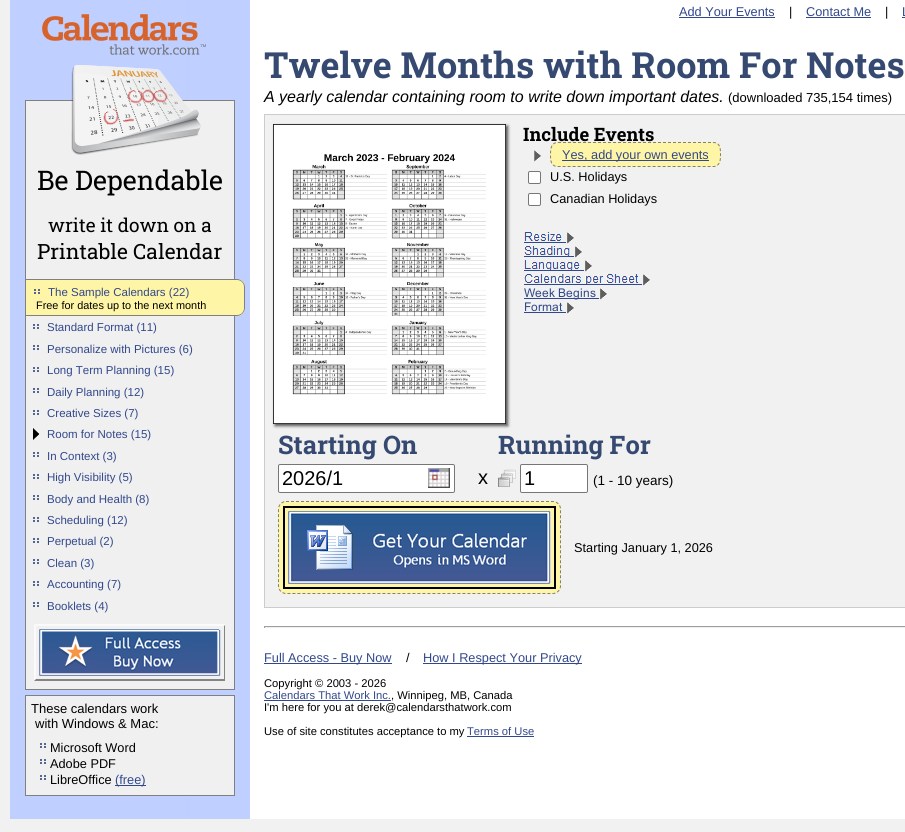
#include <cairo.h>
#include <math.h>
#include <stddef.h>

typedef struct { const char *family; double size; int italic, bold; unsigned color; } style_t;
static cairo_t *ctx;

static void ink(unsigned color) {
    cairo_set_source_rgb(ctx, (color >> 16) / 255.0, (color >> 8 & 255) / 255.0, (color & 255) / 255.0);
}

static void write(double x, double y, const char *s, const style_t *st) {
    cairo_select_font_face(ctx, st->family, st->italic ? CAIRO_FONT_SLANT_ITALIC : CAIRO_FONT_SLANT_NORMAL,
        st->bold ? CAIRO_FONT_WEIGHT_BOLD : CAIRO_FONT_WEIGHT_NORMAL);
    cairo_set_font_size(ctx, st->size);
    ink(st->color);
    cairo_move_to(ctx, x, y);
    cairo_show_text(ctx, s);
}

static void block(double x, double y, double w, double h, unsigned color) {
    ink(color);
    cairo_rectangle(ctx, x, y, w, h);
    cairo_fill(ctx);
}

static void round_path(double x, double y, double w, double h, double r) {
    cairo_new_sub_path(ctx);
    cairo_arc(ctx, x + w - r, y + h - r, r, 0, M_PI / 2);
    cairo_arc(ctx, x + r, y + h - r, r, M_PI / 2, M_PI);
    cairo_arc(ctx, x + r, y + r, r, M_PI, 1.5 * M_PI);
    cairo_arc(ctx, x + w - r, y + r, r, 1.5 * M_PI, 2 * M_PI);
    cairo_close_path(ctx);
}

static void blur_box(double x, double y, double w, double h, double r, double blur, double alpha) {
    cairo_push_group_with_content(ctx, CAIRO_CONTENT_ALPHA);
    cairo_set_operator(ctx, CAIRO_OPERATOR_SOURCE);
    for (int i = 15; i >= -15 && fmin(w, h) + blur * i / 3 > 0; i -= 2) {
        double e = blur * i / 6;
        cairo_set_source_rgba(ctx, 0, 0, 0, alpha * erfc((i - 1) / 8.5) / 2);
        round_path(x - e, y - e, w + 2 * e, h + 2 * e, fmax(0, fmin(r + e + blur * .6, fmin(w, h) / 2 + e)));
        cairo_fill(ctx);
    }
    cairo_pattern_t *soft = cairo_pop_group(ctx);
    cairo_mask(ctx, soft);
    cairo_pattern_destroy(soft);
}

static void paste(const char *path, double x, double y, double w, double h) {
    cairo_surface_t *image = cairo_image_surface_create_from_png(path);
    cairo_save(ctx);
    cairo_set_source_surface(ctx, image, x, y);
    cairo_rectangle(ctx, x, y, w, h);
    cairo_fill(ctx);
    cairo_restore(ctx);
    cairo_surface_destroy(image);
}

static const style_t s1 = {"Roboto Slab", 27, 0, 0, 0x000000};
static const style_t s2 = {"Roboto Slab", 19, 0, 0, 0x000000};
static const style_t s3 = {"Roboto Slab", 21, 0, 0, 0x000000};
static const style_t s4 = {"Liberation Sans", 11.5, 0, 0, 0x31488c};
static const style_t s5 = {"Liberation Sans", 10.9, 0, 0, 0x000000};
static const style_t s6 = {"Liberation Sans", 13, 0, 0, 0x000000};
static const style_t s7 = {"Liberation Sans", 12.75, 0, 0, 0x000000};
static const style_t s8 = {"Liberation Sans", 12.75, 0, 0, 0x31488c};
static const style_t s9 = {"Roboto Slab", 36, 0, 1, 0x354971};
static const style_t s10 = {"Liberation Sans", 16, 1, 0, 0x000000};
static const style_t s11 = {"Roboto Slab", 18.5, 0, 1, 0x000000};
static const style_t s12 = {"Roboto Slab", 25.5, 0, 1, 0x354971};
static const style_t s13 = {"Liberation Sans", 20, 0, 0, 0x000000};
static const style_t s14 = {"Liberation Sans", 13.5, 0, 0, 0x000000};
static const style_t s15 = {"Liberation Sans", 11.2, 0, 0, 0x000000};
static const style_t s16 = {"Liberation Sans", 11.2, 0, 0, 0x31488c};

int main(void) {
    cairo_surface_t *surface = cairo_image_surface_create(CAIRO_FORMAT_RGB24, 905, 832);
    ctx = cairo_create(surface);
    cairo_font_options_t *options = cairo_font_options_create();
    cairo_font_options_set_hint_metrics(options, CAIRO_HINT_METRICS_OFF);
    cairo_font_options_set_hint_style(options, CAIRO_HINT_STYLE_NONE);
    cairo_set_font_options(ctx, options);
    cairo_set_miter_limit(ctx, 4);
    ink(0xf1f1f1);
    cairo_paint(ctx);
    paste("pic1.png", 10, 0, 895, 819);
    paste("pic2.png", 42, 14, 164, 41);
    cairo_rectangle(ctx, 25.5, 100.5, 209, 589);
    ink(0x808080);
    cairo_set_line_width(ctx, 1);
    cairo_stroke(ctx);
    block(26, 101, 208, 178, 0xf0f0f0);
    paste("pic3.png", 71, 65, 130, 90);
    write(37, 190, "Be Dependable", &s1);
    write(48, 232, "write it down on a", &s2);
    write(37, 259, "Printable Calendar", &s3);
    ink(0xfff5a6);
    cairo_new_path(ctx);
    cairo_move_to(ctx, 26, 279);
    cairo_line_to(ctx, 237, 279);
    cairo_curve_to(ctx, 241.5, 279, 245, 282.5, 245, 287);
    cairo_line_to(ctx, 245, 308);
    cairo_curve_to(ctx, 245, 312.5, 241.5, 316, 237, 316);
    cairo_line_to(ctx, 26, 316);
    cairo_close_path(ctx);
    cairo_fill(ctx);
    ink(0x808080);
    cairo_set_fill_rule(ctx, CAIRO_FILL_RULE_EVEN_ODD);
    cairo_new_path(ctx);
    cairo_move_to(ctx, 26, 279);
    cairo_line_to(ctx, 237, 279);
    cairo_curve_to(ctx, 241, 279, 245, 283, 245, 287);
    cairo_line_to(ctx, 245, 308);
    cairo_curve_to(ctx, 245, 312, 241, 316, 237, 316);
    cairo_line_to(ctx, 26, 316);
    cairo_close_path(ctx);
    cairo_move_to(ctx, 26, 280);
    cairo_line_to(ctx, 237, 280);
    cairo_curve_to(ctx, 241, 280, 244, 283, 244, 287);
    cairo_line_to(ctx, 244, 308);
    cairo_curve_to(ctx, 244, 312, 241, 315, 237, 315);
    cairo_line_to(ctx, 26, 315);
    cairo_close_path(ctx);
    cairo_fill(ctx);
    paste("pic4.png", 34, 289, 6, 5);
    write(48, 296, "The Sample Calendars (22)", &s4);
    write(36, 309, "Free for dates up to the next month", &s5);
    block(26, 316, 208, 373, 0xf0f0f0);
    paste("pic5.png", 33, 324, 6, 5);
    write(47, 331, "Standard Format (11)", &s4);
    paste("pic5.png", 33, 345, 6, 5);
    write(47, 353, "Personalize with Pictures (6)", &s4);
    paste("pic5.png", 33, 367, 6, 5);
    write(47, 374, "Long Term Planning (15)", &s4);
    paste("pic5.png", 33, 388, 6, 5);
    write(47, 396, "Daily Planning (12)", &s4);
    paste("pic5.png", 33, 410, 6, 5);
    write(47, 417, "Creative Sizes (7)", &s4);
    paste("pic6.png", 33, 428, 6, 12);
    write(47, 438, "Room for Notes (15)", &s4);
    paste("pic5.png", 33, 452, 6, 5);
    write(47, 460, "In Context (3)", &s4);
    paste("pic5.png", 33, 474, 6, 5);
    write(47, 481, "High Visibility (5)", &s4);
    paste("pic5.png", 33, 495, 6, 5);
    write(47, 503, "Body and Health (8)", &s4);
    paste("pic5.png", 33, 517, 6, 5);
    write(47, 524, "Scheduling (12)", &s4);
    paste("pic5.png", 33, 538, 6, 5);
    write(47, 545, "Perpetual (2)", &s4);
    paste("pic5.png", 33, 559, 6, 5);
    write(47, 567, "Clean (3)", &s4);
    paste("pic5.png", 33, 581, 6, 5);
    write(47, 588, "Accounting (7)", &s4);
    paste("pic5.png", 33, 602, 6, 5);
    write(47, 610, "Booklets (4)", &s4);
    paste("pic7.png", 34, 624, 191, 57);
    cairo_rectangle(ctx, 25.5, 695.5, 209, 100);
    ink(0x808080);
    cairo_stroke(ctx);
    block(26, 696, 208, 99, 0xf0f0f0);
    write(31, 713, "These calendars work", &s6);
    write(35, 728, "with Windows & Mac:", &s6);
    paste("pic5.png", 40, 743, 6, 5);
    write(50, 752, "Microsoft Word", &s7);
    paste("pic5.png", 40, 759, 6, 5);
    write(50, 768, "Adobe PDF", &s7);
    paste("pic5.png", 40, 775, 6, 5);
    write(50, 784, "LibreOffice", &s7);
    block(115, 785, 31, 1, 0x31488c);
    write(115, 784, "(free)", &s8);
    write(679, 16, "Add Your Events", &s8);
    block(679, 17, 96, 1, 0x31488c);
    write(789, 16, "|", &s7);
    write(806, 16, "Contact Me", &s8);
    block(806, 17, 65, 1, 0x31488c);
    write(885, 16, "|", &s7);
    write(902, 16, "L", &s8);
    block(902, 17, 3, 1, 0x31488c);
    write(264, 78, "Twelve Months with Room For Notes", &s9);
    write(264, 102, "A yearly calendar containing room to write down important dates.", &s10);
    write(728, 102, "(downloaded 735,154 times)", &s6);
    ink(0xf1f1f1);
    cairo_rectangle(ctx, 264.5, 114.5, 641, 493);
    cairo_fill_preserve(ctx);
    ink(0xcccccc);
    cairo_stroke(ctx);
    block(270, 120, 1, 1, 0xffffff);
    ink(0x555555);
    blur_box(275, 126, 233, 300, 0, 1.5, 1);
    paste("pic8.png", 273, 124, 233, 300);
    write(523, 141, "Include Events", &s11);
    paste("pic9.png", 534, 150, 7, 12);
    ink(0xfff5a6);
    round_path(550, 142, 171, 25, 8);
    cairo_fill(ctx);
    cairo_new_path(ctx);
    cairo_move_to(ctx, 558, 142.5);
    cairo_line_to(ctx, 713, 142.5);
    cairo_curve_to(ctx, 720.5, 142.5, 720.5, 149, 720.5, 154.5);
    cairo_curve_to(ctx, 720.5, 159.5, 720.5, 165, 714.5, 166.5);
    cairo_line_to(ctx, 558, 166.5);
    cairo_curve_to(ctx, 550.5, 166.5, 550.5, 160, 550.5, 154.5);
    cairo_curve_to(ctx, 550.5, 149, 551, 142.5, 558, 142.5);
    cairo_close_path(ctx);
    ink(0x808080);
    cairo_set_dash(ctx, (double[]){3, 2}, 2, 0);
    cairo_stroke(ctx);
    block(562, 160, 147, 1, 0x31488c);
    write(562, 159, "Yes, add your own events", &s8);
    ink(0xffffff);
    round_path(528.5, 171.5, 12, 12, 1.5);
    cairo_fill_preserve(ctx);
    ink(0x767676);
    cairo_set_dash(ctx, NULL, 0, 0);
    cairo_stroke(ctx);
    write(550, 181, "U.S. Holidays", &s7);
    ink(0xffffff);
    round_path(528.5, 193.5, 12, 12, 1.5);
    cairo_fill_preserve(ctx);
    ink(0x767676);
    cairo_stroke(ctx);
    write(550, 203, "Canadian Holidays", &s7);
    paste("pic10.png", 524, 232, 50, 12);
    paste("pic11.png", 524, 246, 58, 12);
    paste("pic12.png", 524, 260, 68, 12);
    paste("pic13.png", 524, 274, 126, 12);
    paste("pic14.png", 524, 288, 83, 12);
    paste("pic15.png", 524, 302, 50, 12);
    write(278, 454, "Starting On", &s12);
    ink(0xffffff);
    round_path(278.5, 464.5, 176, 28, 1.5);
    cairo_fill_preserve(ctx);
    ink(0x767676);
    cairo_stroke(ctx);
    write(282, 485, "2026/1", &s13);
    paste("pic16.png", 428, 468, 22, 20);
    write(478, 484, "x", &s13);
    write(498, 454, "Running For", &s12);
    paste("pic17.png", 498, 469, 18, 18);
    ink(0xffffff);
    round_path(520.5, 464.5, 67, 28, 1.5);
    cairo_fill_preserve(ctx);
    ink(0x767676);
    cairo_stroke(ctx);
    write(524, 485, "1", &s13);
    write(593, 485, "(1 - 10 years)", &s14);
    ink(0xfff5a6);
    round_path(278, 501, 283, 93, 8);
    cairo_fill(ctx);
    cairo_new_path(ctx);
    cairo_move_to(ctx, 286, 501.5);
    cairo_line_to(ctx, 553, 501.5);
    cairo_curve_to(ctx, 557, 501.5, 560.5, 505, 560.5, 509);
    cairo_line_to(ctx, 560.5, 586);
    cairo_curve_to(ctx, 560.5, 590, 557, 593.5, 553, 593.5);
    cairo_line_to(ctx, 286, 593.5);
    cairo_curve_to(ctx, 282, 593.5, 278.5, 590, 278.5, 586);
    cairo_line_to(ctx, 278.5, 509);
    cairo_curve_to(ctx, 278.5, 505, 282, 501.5, 286, 501.5);
    cairo_close_path(ctx);
    ink(0x808080);
    cairo_set_dash(ctx, (double[]){3, 2}, 2, 0);
    cairo_stroke(ctx);
    paste("pic18.png", 288, 511, 263, 73);
    cairo_rectangle(ctx, 284, 507, 271, 81);
    ink(0x000000);
    cairo_set_line_width(ctx, 2);
    cairo_set_dash(ctx, NULL, 0, 0);
    cairo_stroke(ctx);
    write(574, 552, "Starting January 1, 2026", &s7);
    block(264, 626, 641, 1, 0x9f9f9f);
    block(264, 627, 641, 1, 0xeeeeee);
    block(264, 626, 1, 2, 0x9f9f9f);
    block(264, 663, 128, 1, 0x31488c);
    write(264, 662, "Full Access - Buy Now", &s8);
    write(406, 662, "/", &s7);
    block(423, 663, 159, 1, 0x31488c);
    write(423, 662, "How I Respect Your Privacy", &s8);
    write(264, 687, "Copyright © 2003 - 2026", &s15);
    write(264, 699, "Calendars That Work Inc.", &s16);
    write(391, 699, ", Winnipeg, MB, Canada", &s15);
    block(264, 700, 127, 1, 0x31488c);
    write(264, 711, "I'm here for you at derek@calendarsthatwork.com", &s15);
    write(264, 735, "Use of site constitutes acceptance to my", &s15);
    block(467, 736, 67, 1, 0x31488c);
    write(467, 735, "Terms of Use", &s16);
    cairo_surface_write_to_png(surface, "screenshot.png");
    cairo_font_options_destroy(options);
    cairo_destroy(ctx);
    cairo_surface_destroy(surface);
    return 0;
}
